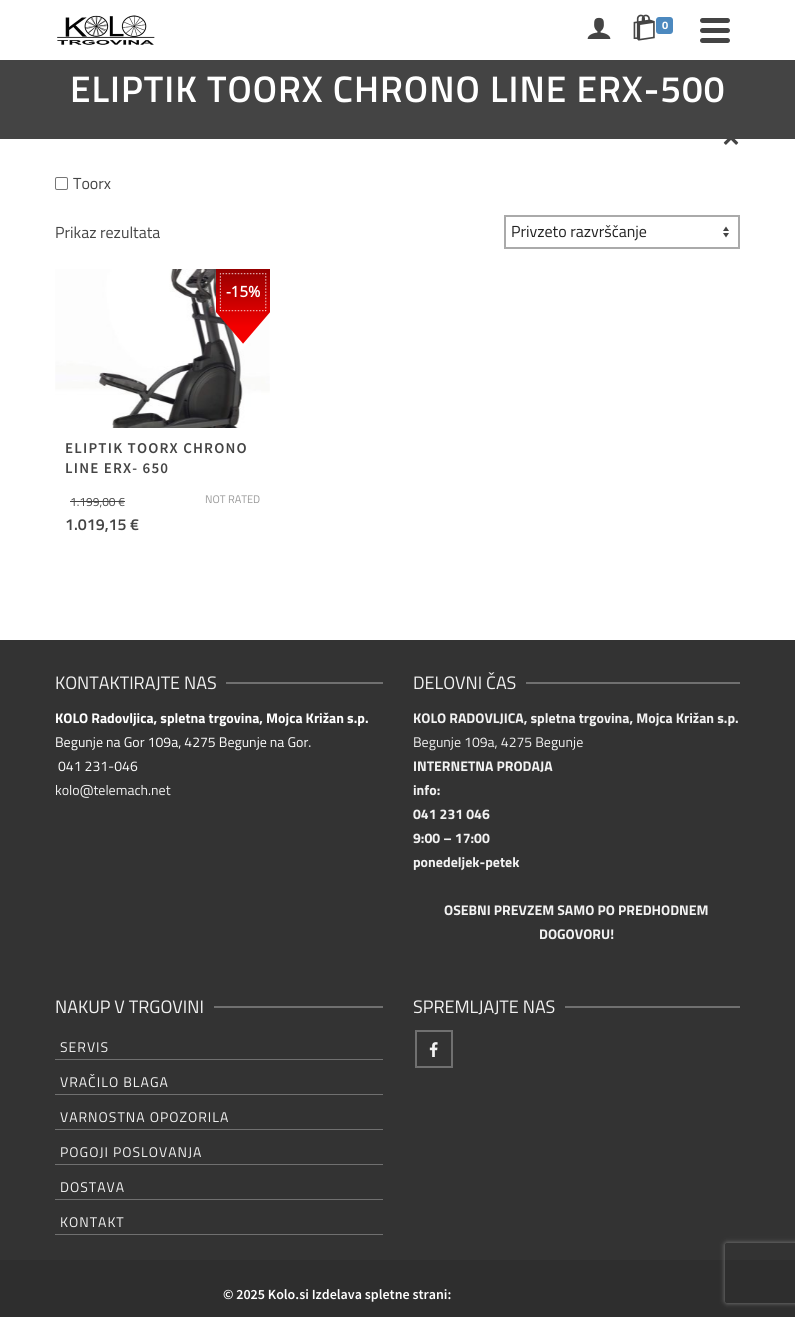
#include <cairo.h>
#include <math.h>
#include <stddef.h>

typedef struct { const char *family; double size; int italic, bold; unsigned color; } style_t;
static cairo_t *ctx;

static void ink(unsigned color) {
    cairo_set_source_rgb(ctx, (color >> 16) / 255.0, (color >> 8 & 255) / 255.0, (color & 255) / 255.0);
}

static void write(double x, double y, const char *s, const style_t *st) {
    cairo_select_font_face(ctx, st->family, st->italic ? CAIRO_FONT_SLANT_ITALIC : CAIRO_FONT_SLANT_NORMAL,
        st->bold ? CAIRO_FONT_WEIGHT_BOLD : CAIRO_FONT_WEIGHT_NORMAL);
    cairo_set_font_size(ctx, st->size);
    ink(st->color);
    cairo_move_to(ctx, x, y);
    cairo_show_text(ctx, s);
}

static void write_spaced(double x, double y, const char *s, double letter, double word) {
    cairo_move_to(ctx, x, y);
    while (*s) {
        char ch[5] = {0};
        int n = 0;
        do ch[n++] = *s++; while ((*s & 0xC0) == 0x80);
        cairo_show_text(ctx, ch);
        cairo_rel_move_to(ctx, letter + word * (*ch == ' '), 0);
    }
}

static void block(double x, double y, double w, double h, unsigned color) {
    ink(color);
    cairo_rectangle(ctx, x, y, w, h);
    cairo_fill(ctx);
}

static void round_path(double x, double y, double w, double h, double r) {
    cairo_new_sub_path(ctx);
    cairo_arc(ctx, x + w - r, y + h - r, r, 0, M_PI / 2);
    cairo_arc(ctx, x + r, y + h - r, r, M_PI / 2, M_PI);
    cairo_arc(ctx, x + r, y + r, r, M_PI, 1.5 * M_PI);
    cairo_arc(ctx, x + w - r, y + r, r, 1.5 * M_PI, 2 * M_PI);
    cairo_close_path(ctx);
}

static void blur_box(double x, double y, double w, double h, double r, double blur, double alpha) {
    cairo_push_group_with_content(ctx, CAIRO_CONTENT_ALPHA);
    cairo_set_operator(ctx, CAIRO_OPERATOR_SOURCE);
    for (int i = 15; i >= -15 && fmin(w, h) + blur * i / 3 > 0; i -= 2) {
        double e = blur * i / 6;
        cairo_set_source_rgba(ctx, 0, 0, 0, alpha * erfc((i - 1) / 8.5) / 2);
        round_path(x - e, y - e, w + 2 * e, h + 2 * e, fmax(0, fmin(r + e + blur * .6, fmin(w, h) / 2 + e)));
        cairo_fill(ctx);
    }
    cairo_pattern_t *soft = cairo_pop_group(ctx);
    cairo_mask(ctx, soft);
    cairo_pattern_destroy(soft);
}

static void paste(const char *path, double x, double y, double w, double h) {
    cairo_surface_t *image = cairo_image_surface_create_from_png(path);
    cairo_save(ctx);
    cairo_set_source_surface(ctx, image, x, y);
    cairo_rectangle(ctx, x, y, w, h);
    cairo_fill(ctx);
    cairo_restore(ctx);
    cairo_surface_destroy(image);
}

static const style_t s1 = {"Titillium Web", 11, 0, 1, 0xffffff};
static const style_t s2 = {"Titillium Web", 16, 0, 0, 0x444444};
static const style_t s3 = {"Titillium Web", 16, 0, 0, 0x222222};
static const style_t s4 = {"Open Sans", 15, 0, 1, 0xffffff};
static const style_t s5 = {"Titillium Web", 12, 0, 0, 0x444444};
static const style_t s6 = {"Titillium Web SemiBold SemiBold", 16, 0, 0, 0x444444};
static const style_t s7 = {"Titillium Web", 11, 0, 0, 0x999999};
static const style_t s8 = {"Titillium Web", 18, 0, 0, 0xf2f2f2};
static const style_t s9 = {"Titillium Web", 14, 0, 1, 0xffffff};
static const style_t s10 = {"Titillium Web", 14, 0, 0, 0xffffff};
static const style_t s11 = {"Titillium Web", 14, 0, 0, 0xf2f2f2};
static const style_t s12 = {"Titillium Web", 14, 0, 1, 0xf2f2f2};
static const style_t s13 = {"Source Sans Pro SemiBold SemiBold", 14, 0, 0, 0xffffff};

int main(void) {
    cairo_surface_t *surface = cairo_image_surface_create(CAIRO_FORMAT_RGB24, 795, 1317);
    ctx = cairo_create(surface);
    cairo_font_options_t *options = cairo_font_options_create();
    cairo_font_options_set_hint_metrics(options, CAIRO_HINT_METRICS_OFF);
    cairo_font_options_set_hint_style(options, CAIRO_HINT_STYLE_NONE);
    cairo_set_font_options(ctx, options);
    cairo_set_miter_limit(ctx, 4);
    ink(0xffffff);
    cairo_paint(ctx);
    paste("pic1.png", 57, 15, 98, 30);
    paste("pic2.png", 587, 17, 24, 22);
    paste("pic3.png", 633, 14, 22, 27);
    ink(0x4c89bf);
    round_path(656, 17, 17, 17, 3);
    cairo_fill(ctx);
    write(662, 29, "0", &s1);
    ink(0x444444);
    round_path(700, 18, 30, 5, 2.5);
    cairo_fill(ctx);
    round_path(700, 28, 30, 5, 2.5);
    cairo_fill(ctx);
    round_path(700, 38, 30, 5, 2.5);
    cairo_fill(ctx);
    block(0, 60, 795, 79, 0x444444);
    cairo_select_font_face(ctx, "Titillium Web SemiBold SemiBold", CAIRO_FONT_SLANT_NORMAL, CAIRO_FONT_WEIGHT_NORMAL);
    cairo_set_font_size(ctx, 37);
    ink(0xffffff);
    write_spaced(70, 102, "ELIPTIK TOORX CHRONO LINE ERX-500", 1, 0);
    paste("pic4.png", 723, 139, 16, 6);
    round_path(55.5, 177.5, 12, 12, 1.5);
    ink(0x767676);
    cairo_set_line_width(ctx, 1);
    cairo_stroke(ctx);
    write(73, 189, "Toorx", &s2);
    write(55, 238, "Prikaz rezultata", &s2);
    cairo_new_path(ctx);
    cairo_move_to(ctx, 723, 231);
    cairo_line_to(ctx, 726, 226.5);
    cairo_line_to(ctx, 729, 231);
    cairo_close_path(ctx);
    cairo_move_to(ctx, 729, 233);
    cairo_line_to(ctx, 726, 237.5);
    cairo_line_to(ctx, 723, 233);
    cairo_close_path(ctx);
    cairo_fill(ctx);
    cairo_rectangle(ctx, 505, 216, 234, 32);
    ink(0xaaaaaa);
    cairo_set_line_width(ctx, 2);
    cairo_stroke(ctx);
    write(511, 237, "Privzeto razvrščanje", &s3);
    paste("pic5.png", 55, 269, 215, 159);
    paste("pic6.png", 216, 269, 54, 75);
    write(226, 297, "-15%", &s4);
    cairo_select_font_face(ctx, "Source Sans Pro SemiBold SemiBold", CAIRO_FONT_SLANT_NORMAL, CAIRO_FONT_WEIGHT_NORMAL);
    ink(0x444444);
    write_spaced(65, 453, "ELIPTIK TOORX CHRONO", 1.2, 0);
    write_spaced(65, 473, "LINE ERX- 650", 1.2, 0);
    write(70, 506, "1.199,00 €", &s5);
    block(70, 501, 55, 1, 0x444444);
    write(65, 530, "1.019,15 €", &s6);
    write(205, 503, "NOT RATED", &s7);
    block(0, 640, 795, 620, 0x333333);
    write(55, 689, "KONTAKTIRAJTE NAS", &s8);
    block(226, 682, 157, 2, 0x707070);
    write(55, 723, "KOLO Radovljica, spletna trgovina, Mojca Križan s.p.", &s9);
    write(55, 747, "Begunje na Gor 109a, 4275 Begunje na Gor.", &s10);
    write(58, 771, "041 231-046", &s10);
    write(55, 795, "kolo@telemach.net", &s11);
    write(413, 689, "DELOVNI ČAS", &s8);
    block(526, 682, 214, 2, 0x707070);
    write(413, 723, "KOLO RADOVLJICA, spletna trgovina, Mojca Križan s.p.", &s12);
    write(413, 747, "Begunje 109a, 4275 Begunje", &s11);
    write(413, 771, "INTERNETNA PRODAJA", &s12);
    write(413, 795, "info:", &s12);
    write(413, 819, "041 231 046", &s12);
    write(413, 843, "9:00 – 17:00", &s12);
    write(413, 867, "ponedeljek-petek", &s12);
    write(444, 915, "OSEBNI PREVZEM SAMO PO PREDHODNEM", &s12);
    write(539, 939, "DOGOVORU!", &s12);
    write(55, 1013, "NAKUP V TRGOVINI", &s8);
    block(214, 1006, 169, 2, 0x707070);
    block(55, 1059, 328, 1, 0x707070);
    cairo_set_font_size(ctx, 14);
    ink(0xf2f2f2);
    write_spaced(60, 1052, "SERVIS", 1, 0);
    block(55, 1094, 328, 1, 0x707070);
    ink(0xf2f2f2);
    write_spaced(60, 1087, "VRAČILO BLAGA", 1, 0);
    block(55, 1129, 328, 1, 0x707070);
    ink(0xf2f2f2);
    write_spaced(60, 1122, "VARNOSTNA OPOZORILA", 1, 0);
    block(55, 1164, 328, 1, 0x707070);
    ink(0xf2f2f2);
    write_spaced(60, 1157, "POGOJI POSLOVANJA", 1, 0);
    block(55, 1199, 328, 1, 0x707070);
    ink(0xf2f2f2);
    write_spaced(60, 1192, "DOSTAVA", 1, 0);
    block(55, 1234, 328, 1, 0x707070);
    ink(0xf2f2f2);
    write_spaced(60, 1227, "KONTAKT", 1, 0);
    write(413, 1013, "SPREMLJAJTE NAS", &s8);
    block(565, 1006, 175, 2, 0x707070);
    cairo_rectangle(ctx, 416, 1031, 36, 36);
    cairo_stroke(ctx);
    paste("pic7.png", 429, 1042, 9, 15);
    block(0, 1260, 795, 57, 0x2e2e2e);
    write(223, 1299, "© 2025 Kolo.si Izdelava spletne strani:", &s13);
    cairo_save(ctx);
    cairo_set_fill_rule(ctx, CAIRO_FILL_RULE_EVEN_ODD);
    cairo_new_path(ctx);
    cairo_move_to(ctx, 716, 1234);
    cairo_line_to(ctx, 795, 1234);
    cairo_line_to(ctx, 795, 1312);
    cairo_line_to(ctx, 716, 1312);
    cairo_close_path(ctx);
    cairo_move_to(ctx, 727, 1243);
    cairo_line_to(ctx, 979, 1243);
    cairo_curve_to(ctx, 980, 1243, 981, 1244, 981, 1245);
    cairo_line_to(ctx, 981, 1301);
    cairo_curve_to(ctx, 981, 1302, 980, 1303, 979, 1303);
    cairo_line_to(ctx, 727, 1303);
    cairo_curve_to(ctx, 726, 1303, 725, 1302, 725, 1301);
    cairo_line_to(ctx, 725, 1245);
    cairo_curve_to(ctx, 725, 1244, 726, 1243, 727, 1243);
    cairo_close_path(ctx);
    cairo_clip(ctx);
    ink(0x808080);
    blur_box(725, 1243, 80, 60, 2, 2.5, 1);
    cairo_restore(ctx);
    cairo_surface_write_to_png(surface, "screenshot.png");
    cairo_font_options_destroy(options);
    cairo_destroy(ctx);
    cairo_surface_destroy(surface);
    return 0;
}
